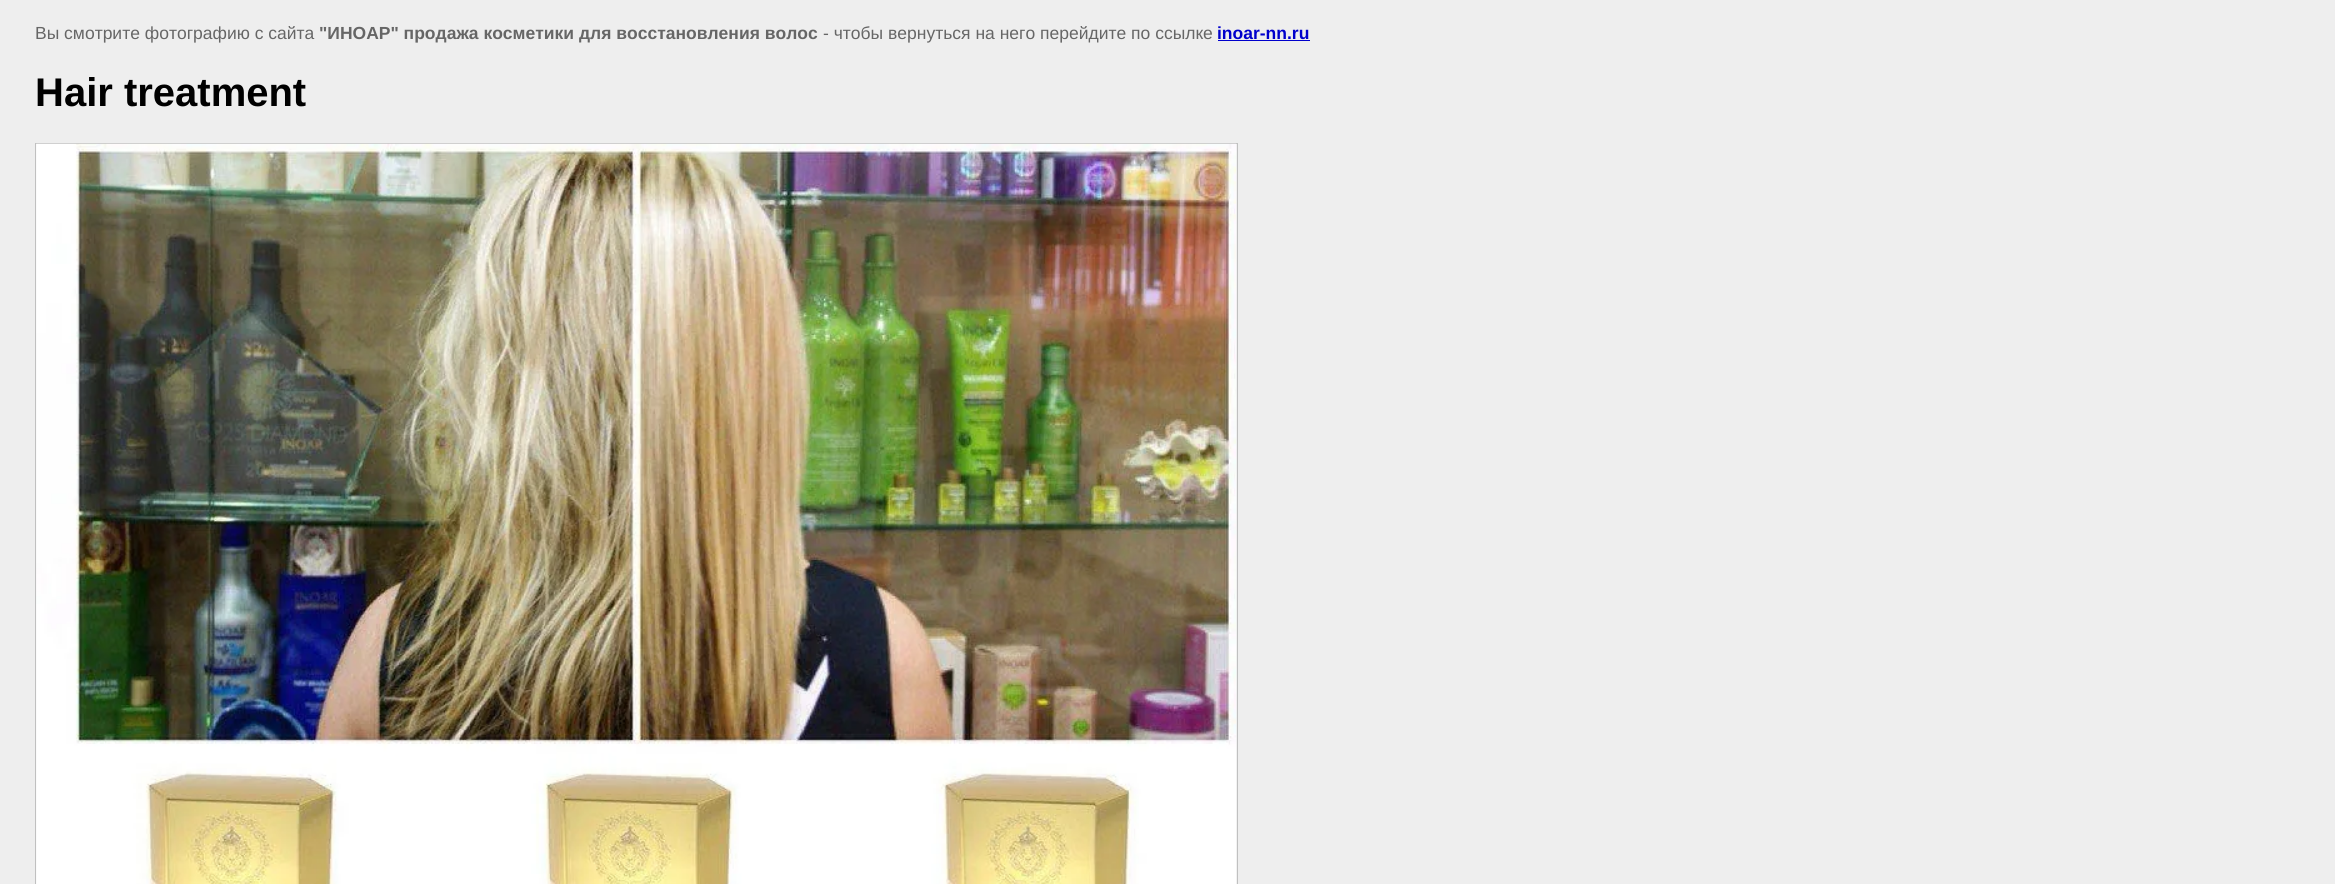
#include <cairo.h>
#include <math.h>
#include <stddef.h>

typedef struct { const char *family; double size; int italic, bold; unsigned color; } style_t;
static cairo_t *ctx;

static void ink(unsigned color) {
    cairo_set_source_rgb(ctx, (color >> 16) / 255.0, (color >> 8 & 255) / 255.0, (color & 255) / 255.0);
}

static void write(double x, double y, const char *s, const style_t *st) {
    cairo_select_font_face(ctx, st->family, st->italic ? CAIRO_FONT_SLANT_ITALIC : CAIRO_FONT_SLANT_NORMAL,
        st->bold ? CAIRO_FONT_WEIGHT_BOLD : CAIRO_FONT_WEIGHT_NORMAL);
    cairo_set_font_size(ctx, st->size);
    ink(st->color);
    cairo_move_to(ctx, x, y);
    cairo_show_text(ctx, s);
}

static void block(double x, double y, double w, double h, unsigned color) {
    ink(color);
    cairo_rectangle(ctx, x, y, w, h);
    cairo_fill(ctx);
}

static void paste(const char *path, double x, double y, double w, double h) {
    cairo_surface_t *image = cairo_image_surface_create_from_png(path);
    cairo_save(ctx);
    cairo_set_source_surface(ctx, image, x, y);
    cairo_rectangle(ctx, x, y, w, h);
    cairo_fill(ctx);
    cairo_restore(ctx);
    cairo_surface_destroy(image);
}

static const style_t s1 = {"Liberation Sans", 17.5, 0, 0, 0x666666};
static const style_t s2 = {"Liberation Sans", 17.5, 0, 1, 0x666666};
static const style_t s3 = {"Liberation Sans", 17.5, 0, 1, 0x0000cc};
static const style_t s4 = {"Liberation Sans", 40, 0, 1, 0x000000};

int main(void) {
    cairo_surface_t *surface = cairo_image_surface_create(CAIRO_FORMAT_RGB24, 2335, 884);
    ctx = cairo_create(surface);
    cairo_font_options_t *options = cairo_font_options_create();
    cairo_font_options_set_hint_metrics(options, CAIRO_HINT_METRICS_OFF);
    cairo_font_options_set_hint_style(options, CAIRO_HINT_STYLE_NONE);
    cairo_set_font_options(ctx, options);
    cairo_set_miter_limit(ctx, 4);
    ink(0xeeeeee);
    cairo_paint(ctx);
    write(35, 39, "Вы смотрите фотографию с сайта", &s1);
    write(319, 39, "\"ИНОАР\" продажа косметики для восстановления волос", &s2);
    write(823, 39, "- чтобы вернуться на него перейдите по ссылке", &s1);
    write(1217, 39, "inoar-nn.ru", &s3);
    block(1218, 40, 92, 1, 0x0000cc);
    write(35, 106, "Hair treatment", &s4);
    cairo_rectangle(ctx, 35.5, 143.5, 1202, 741);
    ink(0xc0c0c0);
    cairo_set_line_width(ctx, 1);
    cairo_stroke(ctx);
    paste("pic1.png", 36, 143, 1201, 741);
    cairo_surface_write_to_png(surface, "screenshot.png");
    cairo_font_options_destroy(options);
    cairo_destroy(ctx);
    cairo_surface_destroy(surface);
    return 0;
}
